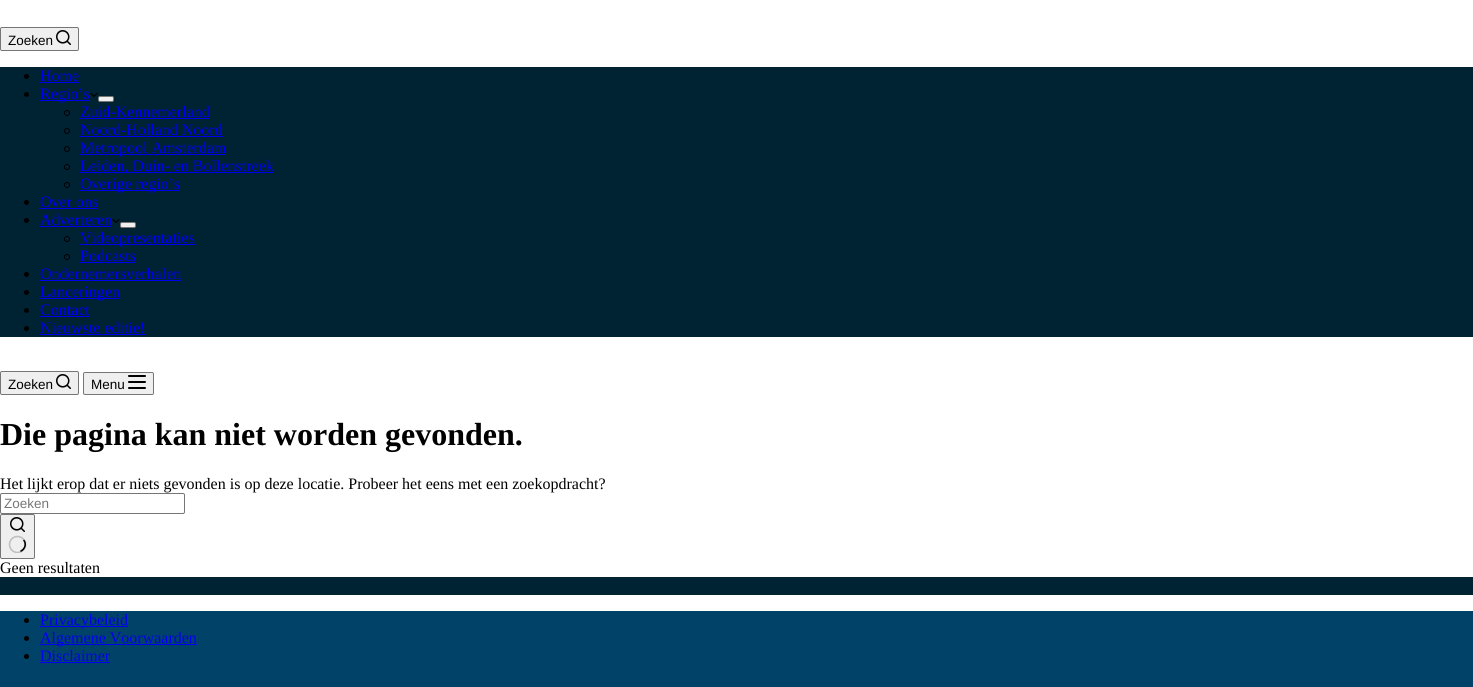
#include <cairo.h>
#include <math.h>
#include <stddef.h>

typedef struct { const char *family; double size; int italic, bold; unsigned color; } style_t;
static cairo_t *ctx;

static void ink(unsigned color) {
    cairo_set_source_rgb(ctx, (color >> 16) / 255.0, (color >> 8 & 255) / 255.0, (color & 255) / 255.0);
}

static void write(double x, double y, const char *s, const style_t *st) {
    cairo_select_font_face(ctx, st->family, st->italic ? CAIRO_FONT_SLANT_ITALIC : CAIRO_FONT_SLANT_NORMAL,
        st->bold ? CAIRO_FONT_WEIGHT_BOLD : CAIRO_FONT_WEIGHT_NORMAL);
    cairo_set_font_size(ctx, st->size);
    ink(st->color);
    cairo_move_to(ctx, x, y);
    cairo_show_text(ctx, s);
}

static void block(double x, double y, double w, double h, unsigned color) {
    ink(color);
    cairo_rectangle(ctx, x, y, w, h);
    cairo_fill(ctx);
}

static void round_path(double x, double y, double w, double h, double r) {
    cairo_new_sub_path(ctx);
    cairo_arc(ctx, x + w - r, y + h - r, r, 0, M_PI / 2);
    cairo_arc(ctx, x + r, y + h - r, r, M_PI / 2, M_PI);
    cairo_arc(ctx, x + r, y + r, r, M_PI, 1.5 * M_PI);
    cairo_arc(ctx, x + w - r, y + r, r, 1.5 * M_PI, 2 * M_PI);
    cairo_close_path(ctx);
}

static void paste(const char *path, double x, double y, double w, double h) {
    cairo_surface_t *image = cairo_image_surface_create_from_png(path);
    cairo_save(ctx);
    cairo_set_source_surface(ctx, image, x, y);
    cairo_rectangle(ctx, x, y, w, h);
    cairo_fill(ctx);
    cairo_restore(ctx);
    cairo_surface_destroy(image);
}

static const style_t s1 = {"Liberation Sans", 13.5, 0, 0, 0x000000};
static const style_t s2 = {"Liberation Serif", 16, 0, 0, 0x0000ee};
static const style_t s3 = {"Liberation Serif", 32, 0, 1, 0x000000};
static const style_t s4 = {"Liberation Serif", 16, 0, 0, 0x000000};
static const style_t s5 = {"Liberation Sans", 13.5, 0, 0, 0x757575};

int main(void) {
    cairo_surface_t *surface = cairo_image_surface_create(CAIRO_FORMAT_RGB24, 1473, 687);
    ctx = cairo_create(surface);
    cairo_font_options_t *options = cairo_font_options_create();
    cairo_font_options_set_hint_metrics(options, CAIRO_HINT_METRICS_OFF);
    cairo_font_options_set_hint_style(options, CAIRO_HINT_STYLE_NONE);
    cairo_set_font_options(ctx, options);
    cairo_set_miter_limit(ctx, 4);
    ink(0xffffff);
    cairo_paint(ctx);
    ink(0xefefef);
    round_path(0.5, 27.5, 78, 23, 1.5);
    cairo_fill_preserve(ctx);
    ink(0x767676);
    cairo_set_line_width(ctx, 1);
    cairo_stroke(ctx);
    write(8, 45, "Zoeken", &s1);
    paste("pic1.png", 56, 30, 15, 15);
    block(0, 67, 1473, 270, 0x002334);
    ink(0x000000);
    cairo_arc(ctx, 26.5, 76.5, 2.5, 0, 2 * M_PI);
    cairo_fill(ctx);
    write(40, 81, "Home", &s2);
    block(40, 82, 39, 1, 0x0000ee);
    ink(0x000000);
    cairo_new_path(ctx);
    cairo_arc(ctx, 26.5, 94.5, 2.5, 0, 2 * M_PI);
    cairo_fill(ctx);
    block(40, 100, 50, 1, 0x0000ee);
    write(40, 99, "Regio’s", &s2);
    paste("pic2.png", 90, 93, 8, 4);
    ink(0xefefef);
    round_path(98.5, 96.5, 15, 5, 1.5);
    cairo_fill_preserve(ctx);
    ink(0x767676);
    cairo_stroke(ctx);
    cairo_arc(ctx, 67, 113, 2.5, 0, 2 * M_PI);
    ink(0x000000);
    cairo_stroke(ctx);
    write(80, 117, "Zuid-Kennemerland", &s2);
    block(80, 118, 130, 1, 0x0000ee);
    cairo_new_path(ctx);
    cairo_arc(ctx, 67, 131, 2.5, 0, 2 * M_PI);
    ink(0x000000);
    cairo_stroke(ctx);
    write(80, 135, "Noord-Holland Noord", &s2);
    block(80, 136, 143, 1, 0x0000ee);
    cairo_new_path(ctx);
    cairo_arc(ctx, 67, 149, 2.5, 0, 2 * M_PI);
    ink(0x000000);
    cairo_stroke(ctx);
    block(80, 154, 146, 1, 0x0000ee);
    write(80, 153, "Metropool Amsterdam", &s2);
    cairo_new_path(ctx);
    cairo_arc(ctx, 67, 167, 2.5, 0, 2 * M_PI);
    ink(0x000000);
    cairo_stroke(ctx);
    block(80, 172, 194, 1, 0x0000ee);
    write(80, 171, "Leiden, Duin- en Bollenstreek", &s2);
    cairo_new_path(ctx);
    cairo_arc(ctx, 67, 185, 2.5, 0, 2 * M_PI);
    ink(0x000000);
    cairo_stroke(ctx);
    block(80, 190, 100, 1, 0x0000ee);
    write(80, 189, "Overige regio’s", &s2);
    ink(0x000000);
    cairo_new_path(ctx);
    cairo_arc(ctx, 26.5, 202.5, 2.5, 0, 2 * M_PI);
    cairo_fill(ctx);
    write(40, 207, "Over ons", &s2);
    block(40, 208, 58, 1, 0x0000ee);
    ink(0x000000);
    cairo_new_path(ctx);
    cairo_arc(ctx, 26.5, 220.5, 2.5, 0, 2 * M_PI);
    cairo_fill(ctx);
    write(40, 225, "Adverteren", &s2);
    block(40, 226, 72, 1, 0x0000ee);
    paste("pic2.png", 112, 219, 8, 4);
    ink(0xefefef);
    round_path(120.5, 222.5, 15, 5, 1.5);
    cairo_fill_preserve(ctx);
    ink(0x767676);
    cairo_stroke(ctx);
    cairo_arc(ctx, 67, 239, 2.5, 0, 2 * M_PI);
    ink(0x000000);
    cairo_stroke(ctx);
    block(80, 244, 115, 1, 0x0000ee);
    write(80, 243, "Videopresentaties", &s2);
    cairo_new_path(ctx);
    cairo_arc(ctx, 67, 257, 2.5, 0, 2 * M_PI);
    ink(0x000000);
    cairo_stroke(ctx);
    write(80, 261, "Podcasts", &s2);
    block(80, 262, 56, 1, 0x0000ee);
    ink(0x000000);
    cairo_new_path(ctx);
    cairo_arc(ctx, 26.5, 274.5, 2.5, 0, 2 * M_PI);
    cairo_fill(ctx);
    write(40, 279, "Ondernemersverhalen", &s2);
    block(40, 280, 141, 1, 0x0000ee);
    ink(0x000000);
    cairo_new_path(ctx);
    cairo_arc(ctx, 26.5, 292.5, 2.5, 0, 2 * M_PI);
    cairo_fill(ctx);
    block(40, 298, 80, 1, 0x0000ee);
    write(40, 297, "Lanceringen", &s2);
    ink(0x000000);
    cairo_new_path(ctx);
    cairo_arc(ctx, 26.5, 310.5, 2.5, 0, 2 * M_PI);
    cairo_fill(ctx);
    write(40, 315, "Contact", &s2);
    block(40, 316, 50, 1, 0x0000ee);
    ink(0x000000);
    cairo_new_path(ctx);
    cairo_arc(ctx, 26.5, 328.5, 2.5, 0, 2 * M_PI);
    cairo_fill(ctx);
    write(40, 333, "Nieuwste editie!", &s2);
    block(40, 334, 105, 1, 0x0000ee);
    ink(0xefefef);
    round_path(0.5, 371.5, 78, 23, 1.5);
    cairo_fill_preserve(ctx);
    ink(0x767676);
    cairo_stroke(ctx);
    write(8, 389, "Zoeken", &s1);
    paste("pic1.png", 56, 374, 15, 15);
    ink(0xefefef);
    round_path(83.5, 372.5, 70, 22, 1.5);
    cairo_fill_preserve(ctx);
    ink(0x767676);
    cairo_stroke(ctx);
    ink(0x000000);
    round_path(128, 375, 18, 2, 1);
    cairo_fill(ctx);
    write(91, 389, "Menu", &s1);
    round_path(128, 381, 18, 2, 1);
    cairo_fill(ctx);
    round_path(128, 387, 18, 2, 1);
    cairo_fill(ctx);
    write(0, 445, "Die pagina kan niet worden gevonden.", &s3);
    write(0, 489, "Het lijkt erop dat er niets gevonden is op deze locatie. Probeer het eens met een zoekopdracht?", &s4);
    round_path(0.5, 493.5, 184, 20, 1.5);
    ink(0x767676);
    cairo_stroke(ctx);
    write(4, 508, "Zoeken", &s5);
    ink(0xefefef);
    round_path(0.5, 514.5, 34, 44, 1.5);
    cairo_fill_preserve(ctx);
    ink(0x767676);
    cairo_stroke(ctx);
    paste("pic1.png", 10, 517, 15, 15);
    cairo_save(ctx);
    cairo_rectangle(ctx, 8, 535, 19, 18);
    cairo_clip(ctx);
    cairo_arc(ctx, 17.5, 544.5, 8, 0, 2 * M_PI);
    ink(0xbfbfbf);
    cairo_set_line_width(ctx, 1.6);
    cairo_stroke(ctx);
    cairo_restore(ctx);
    cairo_new_path(ctx);
    cairo_move_to(ctx, 24, 540.5);
    cairo_curve_to(ctx, 26.5, 544, 25, 549, 21, 551);
    ink(0x000000);
    cairo_set_line_width(ctx, 1.6);
    cairo_set_line_cap(ctx, CAIRO_LINE_CAP_ROUND);
    cairo_stroke(ctx);
    write(0, 573, "Geen resultaten", &s4);
    block(0, 577, 1473, 18, 0x002334);
    block(0, 611, 1473, 76, 0x004268);
    ink(0x000000);
    cairo_new_path(ctx);
    cairo_arc(ctx, 26.5, 620.5, 2.5, 0, 2 * M_PI);
    cairo_fill(ctx);
    block(40, 626, 88, 1, 0x0000ee);
    write(40, 625, "Privacybeleid", &s2);
    ink(0x000000);
    cairo_new_path(ctx);
    cairo_arc(ctx, 26.5, 638.5, 2.5, 0, 2 * M_PI);
    cairo_fill(ctx);
    block(40, 644, 157, 1, 0x0000ee);
    write(40, 643, "Algemene Voorwaarden", &s2);
    ink(0x000000);
    cairo_new_path(ctx);
    cairo_arc(ctx, 26.5, 656.5, 2.5, 0, 2 * M_PI);
    cairo_fill(ctx);
    write(40, 661, "Disclaimer", &s2);
    block(40, 662, 70, 1, 0x0000ee);
    cairo_surface_write_to_png(surface, "screenshot.png");
    cairo_font_options_destroy(options);
    cairo_destroy(ctx);
    cairo_surface_destroy(surface);
    return 0;
}
